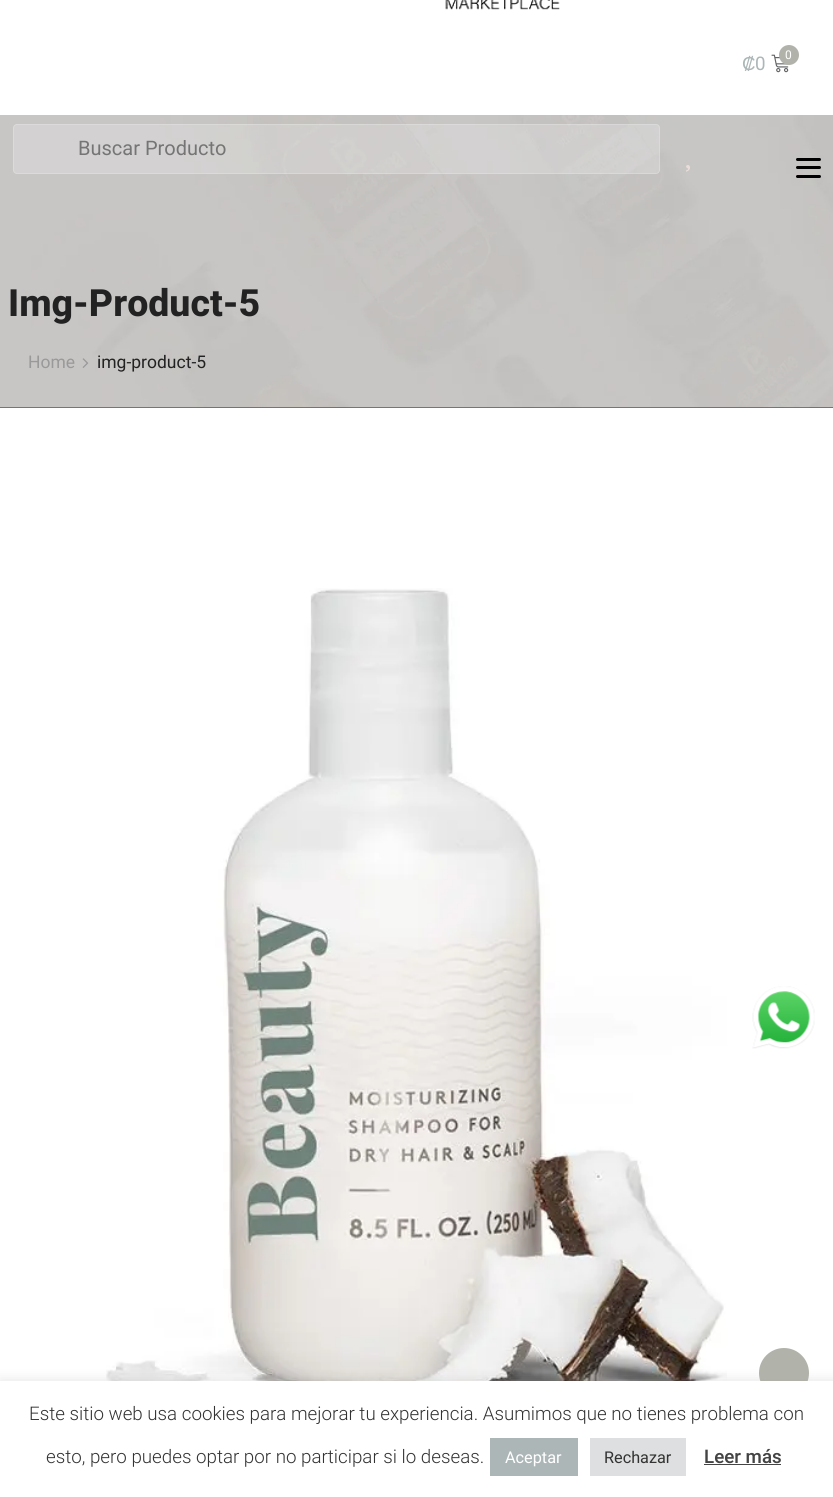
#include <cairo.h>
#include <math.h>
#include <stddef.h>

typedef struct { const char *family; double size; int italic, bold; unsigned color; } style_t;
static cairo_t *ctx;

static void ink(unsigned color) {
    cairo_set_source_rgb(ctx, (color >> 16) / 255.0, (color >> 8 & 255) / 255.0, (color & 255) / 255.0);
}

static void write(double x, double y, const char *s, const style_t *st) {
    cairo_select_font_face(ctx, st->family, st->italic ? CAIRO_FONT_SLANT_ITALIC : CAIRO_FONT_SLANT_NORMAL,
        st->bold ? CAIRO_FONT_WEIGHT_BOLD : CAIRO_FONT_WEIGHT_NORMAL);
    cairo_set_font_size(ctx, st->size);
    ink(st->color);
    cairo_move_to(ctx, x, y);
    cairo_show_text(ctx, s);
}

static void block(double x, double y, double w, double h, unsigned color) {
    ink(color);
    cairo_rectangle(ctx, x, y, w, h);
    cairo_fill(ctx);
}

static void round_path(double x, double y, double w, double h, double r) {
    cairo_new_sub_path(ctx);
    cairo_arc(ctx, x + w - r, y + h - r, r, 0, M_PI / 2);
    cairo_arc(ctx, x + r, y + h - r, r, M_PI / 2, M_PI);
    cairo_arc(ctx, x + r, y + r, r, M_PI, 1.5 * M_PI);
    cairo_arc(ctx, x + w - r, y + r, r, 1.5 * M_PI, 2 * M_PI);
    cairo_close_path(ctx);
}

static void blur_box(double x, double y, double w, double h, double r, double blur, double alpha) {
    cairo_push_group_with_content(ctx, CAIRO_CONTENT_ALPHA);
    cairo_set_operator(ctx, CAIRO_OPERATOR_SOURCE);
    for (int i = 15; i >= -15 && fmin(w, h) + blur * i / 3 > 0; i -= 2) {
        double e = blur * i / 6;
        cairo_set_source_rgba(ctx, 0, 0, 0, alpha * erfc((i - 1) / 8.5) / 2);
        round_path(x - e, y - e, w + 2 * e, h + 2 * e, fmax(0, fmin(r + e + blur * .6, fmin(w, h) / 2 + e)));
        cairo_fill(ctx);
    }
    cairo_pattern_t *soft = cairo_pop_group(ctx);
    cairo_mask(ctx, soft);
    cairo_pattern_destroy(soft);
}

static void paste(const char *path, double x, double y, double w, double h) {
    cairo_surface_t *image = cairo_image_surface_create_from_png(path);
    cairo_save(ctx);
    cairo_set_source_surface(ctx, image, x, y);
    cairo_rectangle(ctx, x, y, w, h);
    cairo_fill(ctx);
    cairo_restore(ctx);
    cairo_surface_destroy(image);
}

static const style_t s1 = {"Liberation Sans", 18.75, 0, 0, 0xacb6b7};
static const style_t s2 = {"Roboto", 18.75, 0, 0, 0xacb6b7};
static const style_t s3 = {"Roboto", 12, 0, 0, 0xffffff};
static const style_t s4 = {"Roboto", 20, 0, 0, 0x757575};
static const style_t s5 = {"Roboto ExtraBold", 37.5, 0, 0, 0x222222};
static const style_t s6 = {"Roboto", 17.5, 0, 0, 0x999999};
static const style_t s7 = {"Roboto", 17.5, 0, 0, 0x222222};
static const style_t s8 = {"Roboto Light", 18.75, 0, 0, 0x333333};
static const style_t s9 = {"Roboto", 16.25, 0, 0, 0xffffff};
static const style_t s10 = {"Roboto", 16.25, 0, 0, 0x333333};
static const style_t s11 = {"Roboto Medium", 18.75, 0, 0, 0x444444};

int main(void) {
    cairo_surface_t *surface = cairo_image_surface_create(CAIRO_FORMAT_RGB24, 833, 1497);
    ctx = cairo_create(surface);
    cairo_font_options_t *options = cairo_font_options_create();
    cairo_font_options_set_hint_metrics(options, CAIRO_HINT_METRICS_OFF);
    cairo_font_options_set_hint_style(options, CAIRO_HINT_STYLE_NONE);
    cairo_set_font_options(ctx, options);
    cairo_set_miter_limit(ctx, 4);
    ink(0xffffff);
    cairo_paint(ctx);
    paste("pic1.png", 445, 0, 115, 10);
    write(742, 70, "₡", &s1);
    write(755, 70, "0", &s2);
    paste("pic2.png", 771, 54, 18, 19);
    ink(0xb1b3aa);
    cairo_arc(ctx, 789, 55, 10, 0, 2 * M_PI);
    cairo_fill(ctx);
    write(785, 59, "0", &s3);
    block(0, 407, 833, 1, 0x282725);
    paste("pic4.png", 0, 115, 833, 293);
    cairo_set_source_rgba(ctx, 1, 1, 1, 0.2);
    round_path(13, 124, 647, 50, 4);
    cairo_fill(ctx);
    round_path(13.5, 124.5, 646, 49, 3.5);
    cairo_set_line_width(ctx, 1);
    cairo_stroke(ctx);
    write(78, 155, "Buscar Producto", &s4);
    paste("pic3.png", 686, 165, 4, 7);
    ink(0x000000);
    round_path(796, 158, 25, 3, 1.5);
    cairo_fill(ctx);
    round_path(796, 166, 25, 3, 1.5);
    cairo_fill(ctx);
    round_path(796, 175, 25, 3, 1.5);
    cairo_fill(ctx);
    write(8, 316, "Img-Product-5", &s5);
    write(28, 368, "Home", &s6);
    paste("pic5.png", 82, 358, 7, 10);
    write(97, 368, "img-product-5", &s7);
    paste("pic6.png", 106, 588, 621, 793);
    paste("pic7.png", 752, 986, 63, 63);
    ink(0xb1b3aa);
    cairo_arc(ctx, 784, 1373, 25, 0, 2 * M_PI);
    cairo_fill(ctx);
    ink(0xacabab);
    blur_box(0, 1380, 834, 116, 0, 6, 0.3);
    block(0, 1381, 833, 116, 0xffffff);
    write(29, 1420, "Este sitio web usa cookies para mejorar tu experiencia. Asumimos que no tienes problema con", &s8);
    write(46, 1463, "esto, pero puedes optar por no participar si lo deseas.", &s8);
    block(490, 1438, 88, 38, 0xacb6b7);
    write(505, 1463, "Aceptar", &s9);
    block(590, 1438, 96, 38, 0xdedfe0);
    write(604, 1463, "Rechazar", &s10);
    write(704, 1463, "Leer más", &s11);
    block(704, 1464, 77, 1, 0x444444);
    cairo_surface_write_to_png(surface, "screenshot.png");
    cairo_font_options_destroy(options);
    cairo_destroy(ctx);
    cairo_surface_destroy(surface);
    return 0;
}
